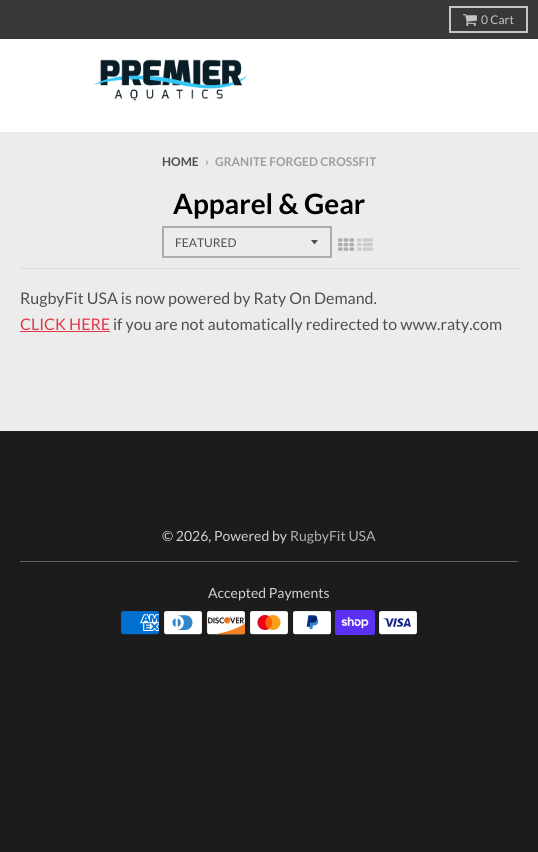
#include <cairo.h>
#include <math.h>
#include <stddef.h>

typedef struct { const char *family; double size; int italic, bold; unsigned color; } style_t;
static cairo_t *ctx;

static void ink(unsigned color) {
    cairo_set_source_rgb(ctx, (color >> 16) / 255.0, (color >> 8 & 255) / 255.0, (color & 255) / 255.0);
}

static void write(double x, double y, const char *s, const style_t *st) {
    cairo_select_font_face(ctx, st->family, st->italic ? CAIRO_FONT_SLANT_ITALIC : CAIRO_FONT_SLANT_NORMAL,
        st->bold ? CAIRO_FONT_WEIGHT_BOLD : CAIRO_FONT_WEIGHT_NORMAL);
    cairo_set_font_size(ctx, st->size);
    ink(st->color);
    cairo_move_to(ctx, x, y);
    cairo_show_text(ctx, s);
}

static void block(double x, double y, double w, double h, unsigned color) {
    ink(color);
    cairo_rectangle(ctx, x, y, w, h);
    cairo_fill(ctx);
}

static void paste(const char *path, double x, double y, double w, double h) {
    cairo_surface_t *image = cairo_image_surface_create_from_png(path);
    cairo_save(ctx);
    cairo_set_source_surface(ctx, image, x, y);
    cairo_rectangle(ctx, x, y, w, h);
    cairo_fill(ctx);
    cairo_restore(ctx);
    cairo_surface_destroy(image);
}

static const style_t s1 = {"Lato", 12, 0, 0, 0xc5c5c5};
static const style_t s2 = {"Lato", 12, 0, 1, 0x4f4f4f};
static const style_t s3 = {"Lato", 12, 0, 1, 0x9d9d9d};
static const style_t s4 = {"Lato", 28, 0, 1, 0x000000};
static const style_t s5 = {"Lato", 12, 0, 0, 0x4f4f4f};
static const style_t s6 = {"Lato", 16, 0, 0, 0x4f4f4f};
static const style_t s7 = {"Lato", 16, 0, 0, 0xdc3a49};
static const style_t s8 = {"Lato", 14, 0, 0, 0xd1d1d1};
static const style_t s9 = {"Lato", 14, 0, 0, 0xb0b0b0};

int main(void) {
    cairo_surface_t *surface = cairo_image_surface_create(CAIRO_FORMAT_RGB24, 538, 852);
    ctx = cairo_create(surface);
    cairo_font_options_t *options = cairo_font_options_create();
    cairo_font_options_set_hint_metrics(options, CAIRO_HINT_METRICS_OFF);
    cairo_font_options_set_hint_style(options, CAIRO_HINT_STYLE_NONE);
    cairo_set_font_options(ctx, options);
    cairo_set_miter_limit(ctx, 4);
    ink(0x1c1c1c);
    cairo_paint(ctx);
    block(0, 132, 538, 299, 0xececec);
    block(0, 0, 538, 39, 0x383838);
    cairo_rectangle(ctx, 450, 7, 77, 25);
    ink(0xc5c5c5);
    cairo_stroke(ctx);
    paste("pic1.png", 463, 14, 14, 12);
    write(481, 24, "0 Cart", &s1);
    block(0, 39, 538, 93, 0xffffff);
    paste("pic2.png", 93, 59, 155, 42);
    write(162, 166, "HOME", &s2);
    write(205, 166, "›", &s3);
    write(215, 166, "GRANITE FORGED CROSSFIT", &s3);
    block(20, 268, 498, 1, 0xdcdcdc);
    write(173, 214, "Apparel & Gear", &s4);
    ink(0x4f4f4f);
    cairo_new_path(ctx);
    cairo_move_to(ctx, 311, 240);
    cairo_curve_to(ctx, 315.5, 245.5, 313.5, 245.5, 318, 240);
    cairo_close_path(ctx);
    cairo_fill(ctx);
    cairo_rectangle(ctx, 163, 227, 168, 30);
    ink(0xadadad);
    cairo_stroke(ctx);
    write(175, 247, "FEATURED", &s5);
    paste("pic3.png", 338, 238, 16, 13);
    paste("pic4.png", 357, 238, 16, 13);
    write(20, 304, "RugbyFit USA is now powered by Raty On Demand.", &s6);
    write(20, 330, "CLICK HERE", &s7);
    block(20, 331, 90, 1, 0xdc3a49);
    write(113, 330, "if you are not automatically redirected to www.raty.com", &s6);
    write(162, 541, "© 2026, Powered by", &s8);
    write(290, 541, "RugbyFit USA", &s9);
    block(20, 561, 498, 1, 0x606060);
    write(208, 598, "Accepted Payments", &s8);
    paste("pic5.png", 121, 611, 38, 24);
    paste("pic6.png", 164, 611, 38, 24);
    paste("pic7.png", 207, 611, 38, 24);
    paste("pic8.png", 250, 611, 38, 24);
    paste("pic9.png", 293, 611, 38, 24);
    paste("pic10.png", 335, 610, 40, 25);
    paste("pic11.png", 379, 611, 38, 24);
    cairo_surface_write_to_png(surface, "screenshot.png");
    cairo_font_options_destroy(options);
    cairo_destroy(ctx);
    cairo_surface_destroy(surface);
    return 0;
}
